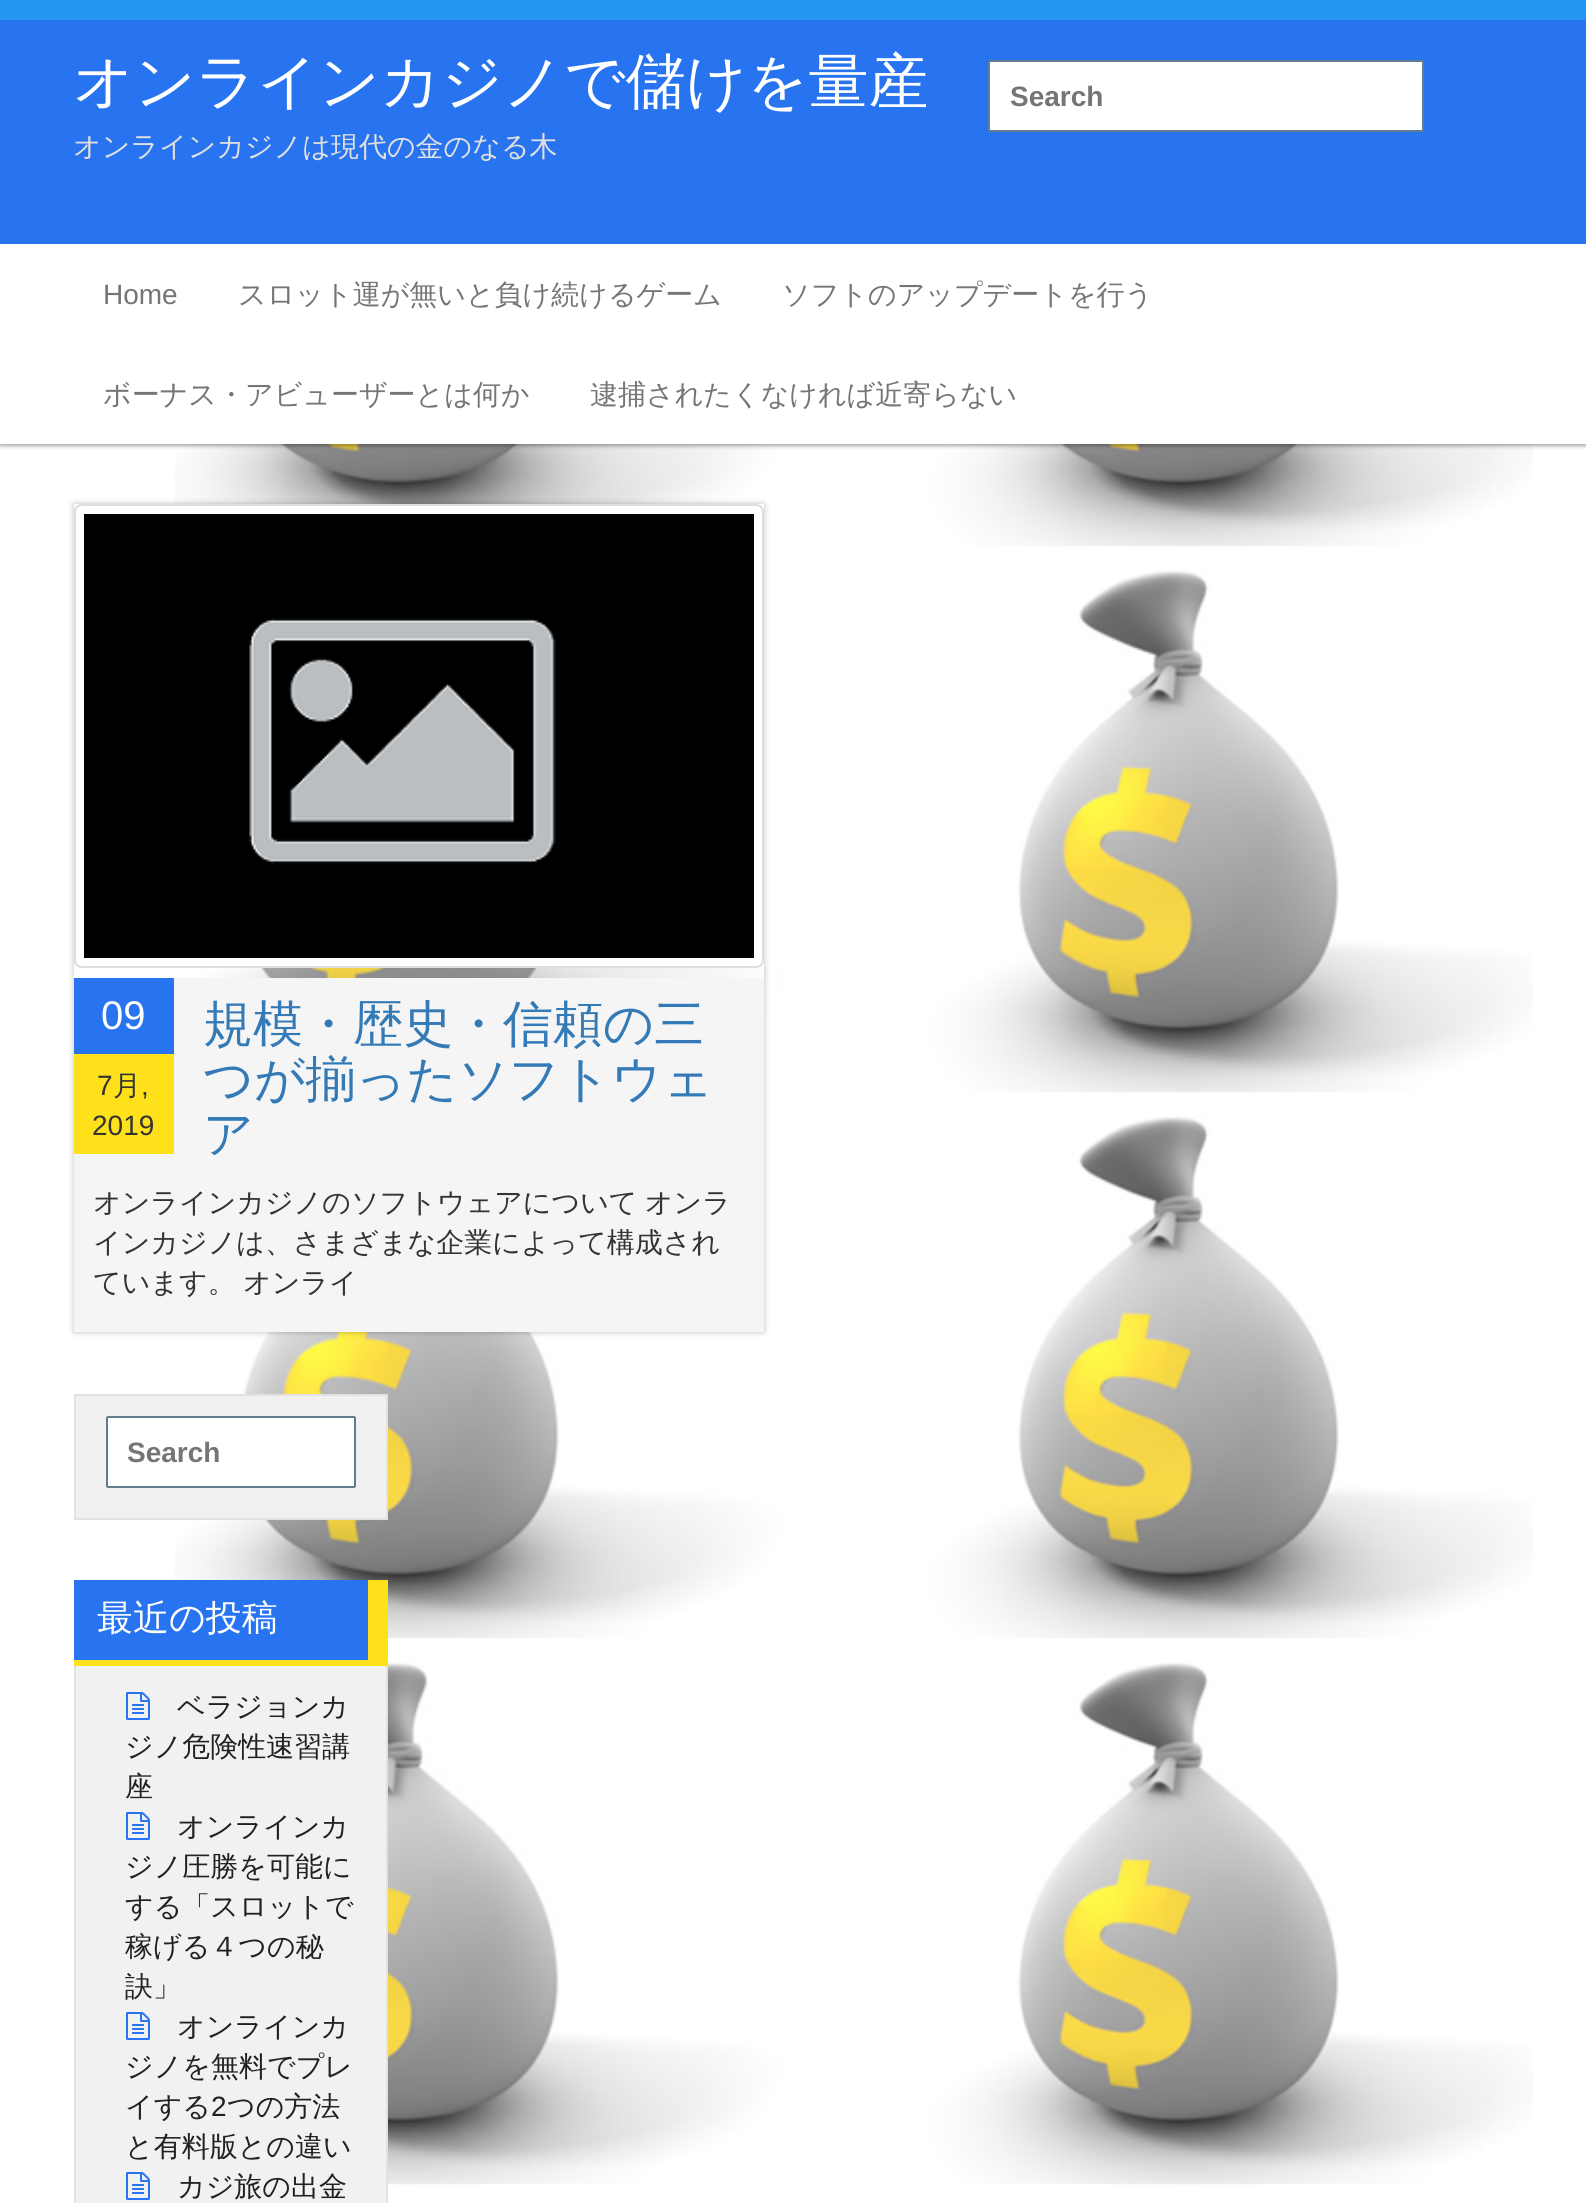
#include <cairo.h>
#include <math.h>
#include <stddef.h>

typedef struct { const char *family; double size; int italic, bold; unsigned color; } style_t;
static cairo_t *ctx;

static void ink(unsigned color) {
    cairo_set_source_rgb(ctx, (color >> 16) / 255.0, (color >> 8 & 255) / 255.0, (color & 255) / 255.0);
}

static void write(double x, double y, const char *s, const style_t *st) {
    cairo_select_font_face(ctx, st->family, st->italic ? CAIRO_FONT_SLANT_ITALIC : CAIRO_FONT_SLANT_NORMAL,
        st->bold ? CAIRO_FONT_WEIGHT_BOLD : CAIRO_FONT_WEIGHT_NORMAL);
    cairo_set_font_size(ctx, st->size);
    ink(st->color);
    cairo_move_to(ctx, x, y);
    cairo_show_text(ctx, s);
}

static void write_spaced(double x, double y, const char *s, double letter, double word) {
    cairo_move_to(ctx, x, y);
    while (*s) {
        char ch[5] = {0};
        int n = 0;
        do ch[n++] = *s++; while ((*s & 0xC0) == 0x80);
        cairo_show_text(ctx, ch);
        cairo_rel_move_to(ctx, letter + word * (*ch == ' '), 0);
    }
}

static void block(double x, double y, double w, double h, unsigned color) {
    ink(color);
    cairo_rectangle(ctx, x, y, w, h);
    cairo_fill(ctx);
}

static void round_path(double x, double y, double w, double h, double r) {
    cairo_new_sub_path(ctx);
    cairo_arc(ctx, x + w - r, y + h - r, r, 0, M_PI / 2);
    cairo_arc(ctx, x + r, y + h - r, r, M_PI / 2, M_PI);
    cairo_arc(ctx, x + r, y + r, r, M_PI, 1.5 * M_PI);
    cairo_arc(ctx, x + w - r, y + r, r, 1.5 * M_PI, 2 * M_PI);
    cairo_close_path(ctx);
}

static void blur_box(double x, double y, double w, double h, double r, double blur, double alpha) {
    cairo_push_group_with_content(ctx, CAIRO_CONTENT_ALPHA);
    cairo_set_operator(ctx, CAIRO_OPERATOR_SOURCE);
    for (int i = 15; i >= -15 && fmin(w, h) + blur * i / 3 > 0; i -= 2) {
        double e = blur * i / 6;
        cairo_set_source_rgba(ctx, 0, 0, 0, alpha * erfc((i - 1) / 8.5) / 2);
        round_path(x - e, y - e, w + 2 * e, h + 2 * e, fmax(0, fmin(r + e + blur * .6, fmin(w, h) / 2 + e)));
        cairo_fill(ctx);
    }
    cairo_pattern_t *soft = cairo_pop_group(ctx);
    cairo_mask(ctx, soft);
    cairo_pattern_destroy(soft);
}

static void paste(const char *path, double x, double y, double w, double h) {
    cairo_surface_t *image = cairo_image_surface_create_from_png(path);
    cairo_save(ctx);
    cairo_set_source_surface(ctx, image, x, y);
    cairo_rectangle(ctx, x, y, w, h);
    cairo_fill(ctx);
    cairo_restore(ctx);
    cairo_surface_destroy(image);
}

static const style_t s1 = {"WenQuanYi Zen Hei Medium", 60, 0, 0, 0xffffff};
static const style_t s2 = {"WenQuanYi Zen Hei Medium", 28, 0, 0, 0xe0e0e0};
static const style_t s3 = {"Liberation Sans", 28, 0, 1, 0x757575};
static const style_t s4 = {"Liberation Sans", 28, 0, 0, 0x757575};
static const style_t s5 = {"WenQuanYi Zen Hei Medium", 28, 0, 0, 0x757575};
static const style_t s6 = {"Liberation Sans", 40, 0, 0, 0xffffff};
static const style_t s7 = {"Liberation Sans", 28, 0, 0, 0x333333};
static const style_t s8 = {"WenQuanYi Zen Hei Medium", 28, 0, 0, 0x333333};
static const style_t s9 = {"WenQuanYi Zen Hei Medium", 50, 0, 0, 0x337ab7};
static const style_t s10 = {"WenQuanYi Zen Hei Medium", 36, 0, 0, 0xffffff};
static const style_t s11 = {"WenQuanYi Zen Hei Medium", 28, 0, 0, 0x212121};
static const style_t s12 = {"Liberation Sans", 28, 0, 0, 0x212121};

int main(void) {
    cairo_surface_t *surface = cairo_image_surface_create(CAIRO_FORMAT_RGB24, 1586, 2203);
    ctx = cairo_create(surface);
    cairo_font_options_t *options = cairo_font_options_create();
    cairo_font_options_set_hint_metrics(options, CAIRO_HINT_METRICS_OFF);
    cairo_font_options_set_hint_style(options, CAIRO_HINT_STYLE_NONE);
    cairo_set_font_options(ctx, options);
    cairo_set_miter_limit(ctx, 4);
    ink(0xffffff);
    cairo_paint(ctx);
    paste("pic1.png", 175, 444, 1358, 1741);
    block(0, 0, 1586, 20, 0x2196f3);
    block(0, 20, 1586, 224, 0x2874f0);
    write(73, 102, "オンラインカジノで儲けを量産", &s1);
    write(73, 156, "オンラインカジノは現代の金のなる木", &s2);
    ink(0xffffff);
    round_path(989, 61, 434, 70, 1);
    cairo_fill_preserve(ctx);
    ink(0x607d8b);
    cairo_stroke(ctx);
    write(1010, 106, "Search", &s3);
    ink(0x000000);
    blur_box(0, 246, 1586, 200, 0, 2, 0.35);
    block(0, 244, 1586, 200, 0xffffff);
    write(103, 304, "Home", &s4);
    write(238, 304, "スロット運が無いと負け続けるゲーム", &s5);
    write(782, 304, "ソフトのアップデートを行う", &s5);
    write(103, 404, "ボーナス・アビューザーとは何か", &s5);
    write(590, 404, "逮捕されたくなければ近寄らない", &s5);
    cairo_save(ctx);
    cairo_set_fill_rule(ctx, CAIRO_FILL_RULE_EVEN_ODD);
    cairo_new_path(ctx);
    cairo_move_to(ctx, 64, 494);
    cairo_line_to(ctx, 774, 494);
    cairo_line_to(ctx, 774, 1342);
    cairo_line_to(ctx, 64, 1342);
    cairo_close_path(ctx);
    cairo_move_to(ctx, 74, 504);
    cairo_line_to(ctx, 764, 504);
    cairo_line_to(ctx, 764, 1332);
    cairo_line_to(ctx, 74, 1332);
    cairo_close_path(ctx);
    cairo_clip(ctx);
    ink(0x000000);
    blur_box(74, 504, 690, 828, 0, 3, 0.27);
    cairo_restore(ctx);
    ink(0xffffff);
    round_path(75, 505, 688, 462, 7);
    cairo_fill_preserve(ctx);
    ink(0xdddddd);
    cairo_stroke(ctx);
    paste("pic2.png", 84, 514, 670, 444);
    block(74, 978, 690, 354, 0xf5f5f5);
    block(74, 978, 100, 76, 0x2874f0);
    write(101, 1029, "09", &s6);
    block(74, 1054, 100, 100, 0xffe11b);
    write(97, 1095, "7", &s7);
    write(113, 1095, "月", &s8);
    write(141, 1095, ",", &s7);
    write(92, 1135, "2019", &s7);
    write(203, 1041, "規模・歴史・信頼の三", &s9);
    write(203, 1096, "つが揃ったソフトウェ", &s9);
    write(203, 1151, "ア", &s9);
    cairo_set_font_size(ctx, 28);
    ink(0x333333);
    write_spaced(93, 1212, "オンラインカジノのソフトウェアについて オンラ", 0, -1);
    write(93, 1252, "インカジノは、さまざまな企業によって構成され", &s8);
    write_spaced(93, 1292, "ています。 オンライ", 0, -1);
    ink(0xf1f1f1);
    cairo_rectangle(ctx, 75, 1395, 312, 124);
    cairo_fill_preserve(ctx);
    ink(0xe2e2e2);
    cairo_stroke(ctx);
    ink(0xffffff);
    round_path(107, 1417, 248, 70, 1);
    cairo_fill_preserve(ctx);
    ink(0x607d8b);
    cairo_stroke(ctx);
    write(127, 1462, "Search", &s3);
    block(76, 1666, 310, 537, 0xf1f1f1);
    cairo_rectangle(ctx, 75, 1581, 312, 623);
    ink(0xe2e2e2);
    cairo_stroke(ctx);
    block(74, 1580, 294, 80, 0x2874f0);
    block(368, 1580, 20, 80, 0xffe11b);
    block(74, 1660, 314, 6, 0xffe11b);
    write(97, 1630, "最近の投稿", &s10);
    paste("pic3.png", 126, 1692, 24, 28);
    write(177, 1716, "ベラジョンカ", &s11);
    write(125, 1756, "ジノ危険性速習講", &s11);
    write(125, 1796, "座", &s11);
    paste("pic3.png", 126, 1812, 24, 28);
    write(177, 1836, "オンラインカ", &s11);
    write(125, 1876, "ジノ圧勝を可能に", &s11);
    write(125, 1916, "する「スロットで", &s11);
    write(125, 1956, "稼げる４つの秘", &s11);
    write(125, 1996, "訣」", &s11);
    paste("pic3.png", 126, 2012, 24, 28);
    write(177, 2036, "オンラインカ", &s11);
    write(125, 2076, "ジノを無料でプレ", &s11);
    write(125, 2116, "イする", &s11);
    write(211, 2116, "2", &s12);
    write(227, 2116, "つの方法", &s11);
    write(125, 2156, "と有料版との違い", &s11);
    paste("pic3.png", 126, 2172, 24, 28);
    write(177, 2196, "カジ旅の出金", &s11);
    cairo_surface_write_to_png(surface, "screenshot.png");
    cairo_font_options_destroy(options);
    cairo_destroy(ctx);
    cairo_surface_destroy(surface);
    return 0;
}
